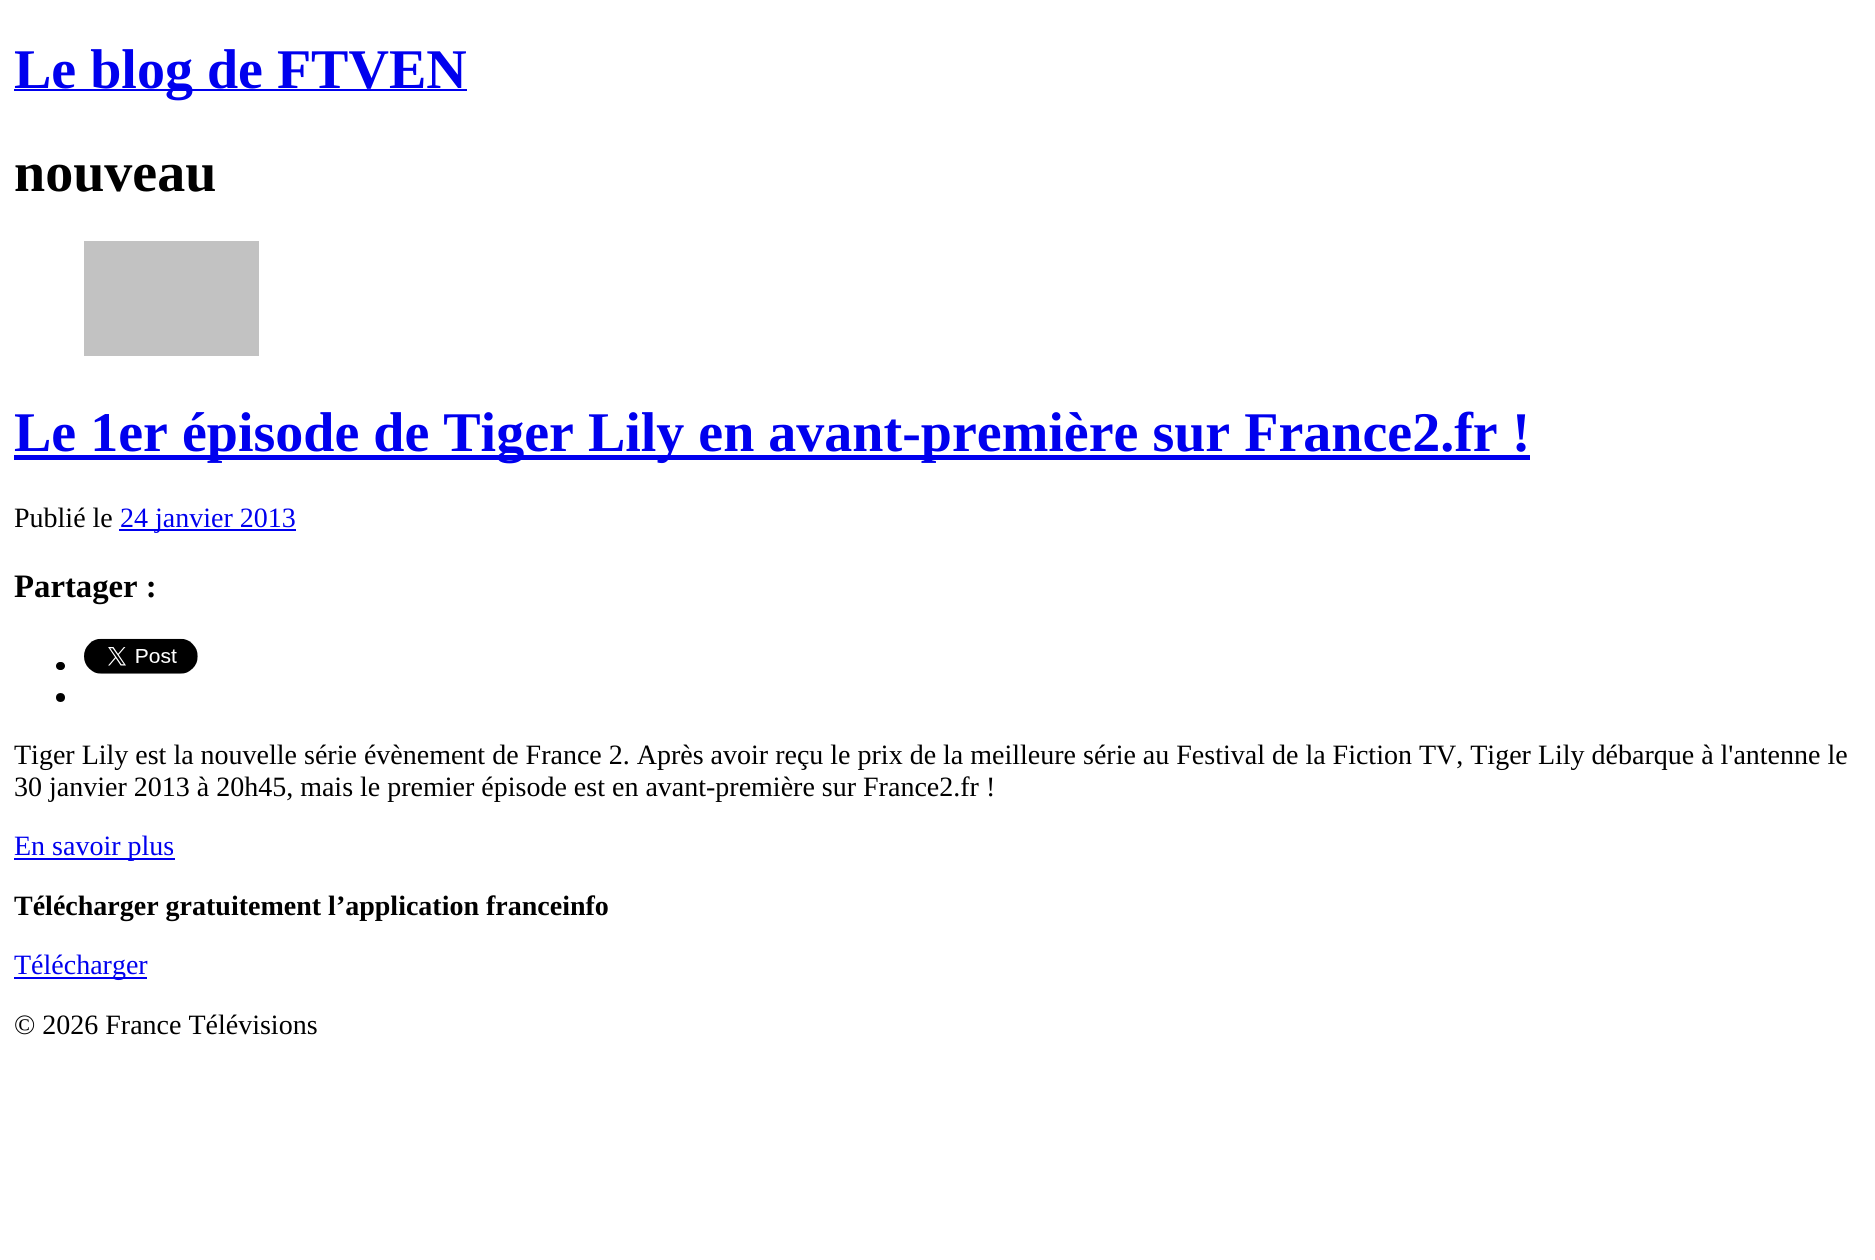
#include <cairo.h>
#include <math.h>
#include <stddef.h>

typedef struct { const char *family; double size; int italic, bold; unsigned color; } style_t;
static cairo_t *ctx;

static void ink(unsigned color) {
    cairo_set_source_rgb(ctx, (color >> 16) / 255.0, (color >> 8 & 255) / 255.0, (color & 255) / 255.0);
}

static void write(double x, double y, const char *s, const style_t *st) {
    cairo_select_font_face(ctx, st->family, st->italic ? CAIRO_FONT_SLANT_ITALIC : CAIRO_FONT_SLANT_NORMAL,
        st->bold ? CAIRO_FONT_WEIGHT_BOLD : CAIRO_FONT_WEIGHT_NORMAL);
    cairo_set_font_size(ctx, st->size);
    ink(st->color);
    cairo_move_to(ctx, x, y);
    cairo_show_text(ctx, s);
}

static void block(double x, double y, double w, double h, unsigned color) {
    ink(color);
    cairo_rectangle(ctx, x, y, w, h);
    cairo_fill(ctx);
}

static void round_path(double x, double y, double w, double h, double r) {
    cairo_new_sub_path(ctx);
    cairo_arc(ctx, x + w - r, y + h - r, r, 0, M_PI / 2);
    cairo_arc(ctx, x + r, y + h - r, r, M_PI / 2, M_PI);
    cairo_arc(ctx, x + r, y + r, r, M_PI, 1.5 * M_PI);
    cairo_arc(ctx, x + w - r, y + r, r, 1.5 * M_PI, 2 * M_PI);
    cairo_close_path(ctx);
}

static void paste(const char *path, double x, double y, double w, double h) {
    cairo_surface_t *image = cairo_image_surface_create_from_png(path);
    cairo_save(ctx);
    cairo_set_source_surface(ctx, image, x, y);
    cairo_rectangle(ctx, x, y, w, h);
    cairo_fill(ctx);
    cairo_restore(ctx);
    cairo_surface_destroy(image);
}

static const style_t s1 = {"Liberation Serif", 56, 0, 1, 0x0000ee};
static const style_t s2 = {"Liberation Serif", 56, 0, 1, 0x000000};
static const style_t s3 = {"Liberation Serif", 28, 0, 0, 0x000000};
static const style_t s4 = {"Liberation Serif", 28, 0, 0, 0x0000ee};
static const style_t s5 = {"Liberation Serif", 32.75, 0, 1, 0x000000};
static const style_t s6 = {"Liberation Serif", 28, 0, 1, 0x000000};

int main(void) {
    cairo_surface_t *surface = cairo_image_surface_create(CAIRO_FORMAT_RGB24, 1875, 1260);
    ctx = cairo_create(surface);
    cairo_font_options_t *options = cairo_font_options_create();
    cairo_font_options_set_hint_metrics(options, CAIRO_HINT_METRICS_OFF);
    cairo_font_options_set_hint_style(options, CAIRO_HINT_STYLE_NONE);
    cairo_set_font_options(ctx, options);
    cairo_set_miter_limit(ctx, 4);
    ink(0xffffff);
    cairo_paint(ctx);
    block(14, 89, 453, 2, 0x0000ee);
    write(14, 88, "Le blog de FTVEN", &s1);
    write(14, 191, "nouveau", &s2);
    block(84, 241, 175, 115, 0xc2c2c2);
    block(14, 455, 1516, 5, 0x0000ee);
    write(14, 451, "Le 1er épisode de Tiger Lily en avant-première sur France2.fr !", &s1);
    write(14, 527, "Publié le", &s3);
    block(119, 529, 177, 2, 0x0000ee);
    write(120, 527, "24 janvier 2013", &s4);
    write(14, 597, "Partager :", &s5);
    round_path(56, 662, 9, 8, 4);
    cairo_fill(ctx);
    paste("pic1.png", 84, 638, 114, 36);
    cairo_arc(ctx, 60.5, 697.5, 4.5, 0, 2 * M_PI);
    cairo_fill(ctx);
    write(14, 764, "Tiger Lily est la nouvelle série évènement de France 2. Après avoir reçu le prix de la meilleure série au Festival de la Fiction TV, Tiger Lily débarque à l'antenne le", &s3);
    write(14, 796, "30 janvier 2013 à 20h45, mais le premier épisode est en avant-première sur France2.fr !", &s3);
    block(14, 858, 161, 2, 0x0000ee);
    write(14, 855, "En savoir plus", &s4);
    write(14, 915, "Télécharger gratuitement l’application franceinfo", &s6);
    block(14, 977, 133, 2, 0x0000ee);
    write(14, 974, "Télécharger", &s4);
    write(14, 1034, "© 2026 France Télévisions", &s3);
    cairo_surface_write_to_png(surface, "screenshot.png");
    cairo_font_options_destroy(options);
    cairo_destroy(ctx);
    cairo_surface_destroy(surface);
    return 0;
}
